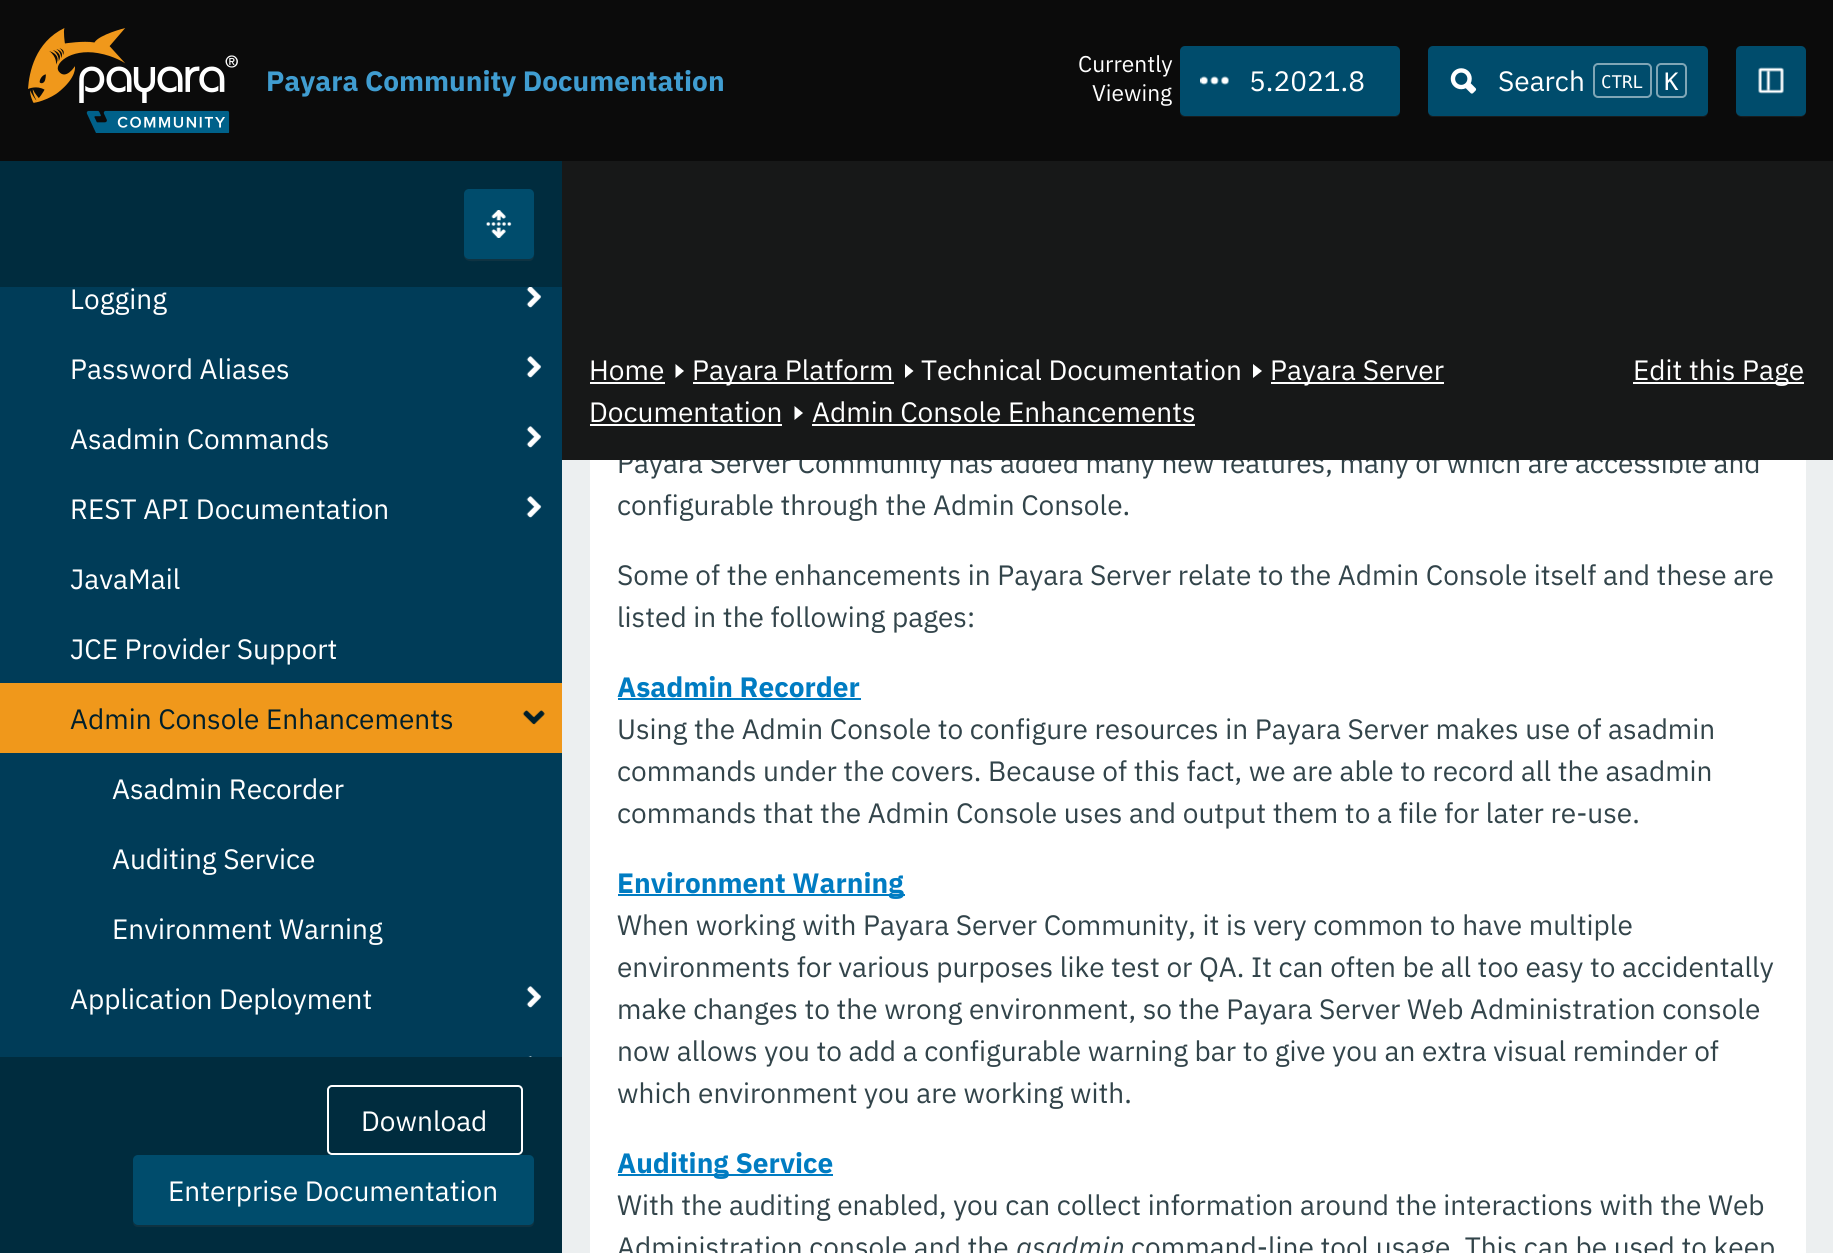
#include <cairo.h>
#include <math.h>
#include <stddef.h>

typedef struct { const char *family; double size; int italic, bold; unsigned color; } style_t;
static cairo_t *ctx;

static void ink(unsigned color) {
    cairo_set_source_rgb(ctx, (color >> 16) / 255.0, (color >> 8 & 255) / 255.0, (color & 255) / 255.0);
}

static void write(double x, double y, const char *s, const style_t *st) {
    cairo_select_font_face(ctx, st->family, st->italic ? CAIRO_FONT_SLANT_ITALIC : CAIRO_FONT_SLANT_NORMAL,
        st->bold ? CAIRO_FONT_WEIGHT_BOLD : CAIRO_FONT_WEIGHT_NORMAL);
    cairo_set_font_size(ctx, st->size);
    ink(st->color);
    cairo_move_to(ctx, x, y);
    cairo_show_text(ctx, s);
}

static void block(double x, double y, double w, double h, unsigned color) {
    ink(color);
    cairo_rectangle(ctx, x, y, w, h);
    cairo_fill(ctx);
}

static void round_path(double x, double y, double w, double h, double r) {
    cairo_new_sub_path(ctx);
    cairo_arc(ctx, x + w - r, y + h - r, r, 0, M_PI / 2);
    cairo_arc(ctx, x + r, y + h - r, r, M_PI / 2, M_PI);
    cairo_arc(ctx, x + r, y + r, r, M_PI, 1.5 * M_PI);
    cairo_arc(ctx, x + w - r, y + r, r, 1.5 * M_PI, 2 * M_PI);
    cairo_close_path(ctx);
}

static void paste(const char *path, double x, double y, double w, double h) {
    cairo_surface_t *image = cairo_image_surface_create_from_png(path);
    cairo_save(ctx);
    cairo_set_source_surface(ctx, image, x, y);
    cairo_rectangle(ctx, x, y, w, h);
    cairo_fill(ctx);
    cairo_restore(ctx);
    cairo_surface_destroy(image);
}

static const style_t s1 = {"IBM Plex Sans", 28, 0, 1, 0x409dd1};
static const style_t s2 = {"IBM Plex Sans", 22.75, 0, 0, 0xffffff};
static const style_t s3 = {"IBM Plex Sans", 28, 0, 0, 0xffffff};
static const style_t s4 = {"DejaVu Sans Mono", 17.5, 0, 0, 0xffffff};
static const style_t s5 = {"DejaVu Sans Mono", 24, 0, 0, 0xffffff};
static const style_t s6 = {"IBM Plex Sans", 28, 0, 0, 0x001f2b};
static const style_t s7 = {"IBM Plex Sans", 28, 0, 0, 0x32444a};
static const style_t s8 = {"IBM Plex Sans", 28, 0, 1, 0x007cc2};
static const style_t s9 = {"IBM Plex Sans", 28, 1, 0, 0x32444a};

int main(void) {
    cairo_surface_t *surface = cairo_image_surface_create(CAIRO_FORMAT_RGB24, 1833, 1253);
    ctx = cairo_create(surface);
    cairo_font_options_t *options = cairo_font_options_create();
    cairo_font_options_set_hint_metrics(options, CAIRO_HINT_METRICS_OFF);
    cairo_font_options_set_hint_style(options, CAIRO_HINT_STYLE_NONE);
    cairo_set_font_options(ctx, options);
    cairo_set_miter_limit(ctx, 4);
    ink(0x002c3e);
    cairo_paint(ctx);
    block(0, 0, 1833, 161, 0x0b0b0b);
    paste("pic1.png", 28, 28, 210, 105);
    write(266, 91, "Payara Community Documentation", &s1);
    write(1078, 72, "Currently", &s2);
    write(1092, 101, "Viewing", &s2);
    ink(0x171c1e);
    cairo_new_path(ctx);
    cairo_move_to(ctx, 1180, 113);
    cairo_curve_to(ctx, 1180, 115, 1182, 117, 1185, 117);
    cairo_line_to(ctx, 1395, 117);
    cairo_curve_to(ctx, 1399, 117, 1400, 114, 1400, 110);
    cairo_curve_to(ctx, 1400, 113, 1398, 116, 1395, 116);
    cairo_line_to(ctx, 1185, 116);
    cairo_curve_to(ctx, 1183, 116, 1181, 114, 1180, 113);
    cairo_close_path(ctx);
    cairo_fill(ctx);
    ink(0x004c6c);
    round_path(1180, 46, 220, 70, 5);
    cairo_fill(ctx);
    paste("pic2.png", 1200, 76, 29, 9);
    write(1249, 91, "5.2021.8", &s3);
    ink(0x171c1e);
    cairo_new_path(ctx);
    cairo_move_to(ctx, 1428, 110);
    cairo_curve_to(ctx, 1428, 114, 1429, 117, 1433, 117);
    cairo_line_to(ctx, 1703, 117);
    cairo_curve_to(ctx, 1707, 117, 1708, 114, 1708, 110);
    cairo_curve_to(ctx, 1708, 113, 1706, 116, 1703, 116);
    cairo_line_to(ctx, 1433, 116);
    cairo_curve_to(ctx, 1430, 116, 1428, 113, 1428, 110);
    cairo_close_path(ctx);
    cairo_fill(ctx);
    ink(0x004c6c);
    round_path(1428, 46, 280, 70, 5);
    cairo_fill(ctx);
    paste("pic3.png", 1450, 68, 27, 26);
    write(1498, 91, "Search", &s3);
    round_path(1594, 64, 57, 33, 4);
    ink(0x80a6b6);
    cairo_stroke(ctx);
    write(1601, 88, "CTRL", &s4);
    round_path(1657, 64, 29, 33, 4);
    ink(0x80a6b6);
    cairo_stroke(ctx);
    write(1664, 90, "K", &s5);
    ink(0x171c1e);
    cairo_new_path(ctx);
    cairo_move_to(ctx, 1736, 110);
    cairo_curve_to(ctx, 1736, 119, 1743, 117, 1751, 117);
    cairo_line_to(ctx, 1791, 117);
    cairo_curve_to(ctx, 1799, 117, 1806, 119, 1806, 110);
    cairo_curve_to(ctx, 1806, 113, 1804, 116, 1801, 116);
    cairo_line_to(ctx, 1741, 116);
    cairo_curve_to(ctx, 1738, 116, 1736, 113, 1736, 110);
    cairo_close_path(ctx);
    cairo_fill(ctx);
    ink(0x004c6c);
    round_path(1736, 46, 70, 70, 5);
    cairo_fill(ctx);
    paste("pic4.png", 1758, 67, 26, 27);
    ink(0x0f3342);
    cairo_new_path(ctx);
    cairo_move_to(ctx, 464, 255);
    cairo_curve_to(ctx, 464, 263, 474, 261, 479, 261);
    cairo_line_to(ctx, 530, 261);
    cairo_curve_to(ctx, 536, 260, 534, 249, 534, 246);
    cairo_line_to(ctx, 534, 194);
    cairo_line_to(ctx, 534, 254);
    cairo_curve_to(ctx, 534, 257, 531, 259, 528, 259);
    cairo_line_to(ctx, 469, 259);
    cairo_curve_to(ctx, 467, 259, 465, 257, 464, 255);
    cairo_close_path(ctx);
    cairo_fill(ctx);
    ink(0x004c6c);
    round_path(464, 189, 70, 70, 5);
    cairo_fill(ctx);
    paste("pic5.png", 486, 210, 26, 28);
    block(0, 287, 562, 396, 0x003c58);
    write(70, 309, "Logging", &s3);
    paste("pic6.png", 526, 287, 16, 21);
    write(70, 379, "Password Aliases", &s3);
    paste("pic7.png", 526, 356, 16, 22);
    write(70, 449, "Asadmin Commands", &s3);
    paste("pic7.png", 526, 426, 16, 22);
    write(70, 519, "REST API Documentation", &s3);
    paste("pic8.png", 526, 496, 16, 22);
    write(70, 589, "JavaMail", &s3);
    write(70, 659, "JCE Provider Support", &s3);
    block(0, 683, 562, 70, 0xf0981b);
    write(70, 729, "Admin Console Enhancements", &s6);
    paste("pic9.png", 522, 710, 23, 15);
    block(0, 753, 562, 304, 0x003c58);
    write(112, 799, "Asadmin Recorder", &s3);
    write(112, 869, "Auditing Service", &s3);
    write(112, 939, "Environment Warning", &s3);
    write(70, 1009, "Application Deployment", &s3);
    paste("pic7.png", 526, 986, 16, 22);
    paste("pic10.png", 528, 1056, 4, 1);
    round_path(328, 1086, 194, 68, 4);
    cairo_stroke(ctx);
    write(361, 1131, "Download", &s3);
    ink(0x0f3342);
    cairo_new_path(ctx);
    cairo_move_to(ctx, 133, 1220);
    cairo_line_to(ctx, 133, 1222);
    cairo_curve_to(ctx, 133, 1225, 135, 1227, 138, 1227);
    cairo_line_to(ctx, 529, 1227);
    cairo_curve_to(ctx, 532, 1227, 534, 1225, 534, 1222);
    cairo_line_to(ctx, 534, 1160);
    cairo_line_to(ctx, 534, 1220);
    cairo_curve_to(ctx, 534, 1223, 531, 1225, 528, 1225);
    cairo_line_to(ctx, 138, 1225);
    cairo_curve_to(ctx, 135, 1225, 133, 1223, 133, 1220);
    cairo_close_path(ctx);
    cairo_fill(ctx);
    ink(0x004c6c);
    round_path(133, 1155, 401, 70, 5);
    cairo_fill(ctx);
    write(168, 1201, "Enterprise Documentation", &s3);
    block(562, 460, 1271, 793, 0xeceff0);
    block(590, 460, 1216, 793, 0xffffff);
    write(617, 473, "Payara Server Community has added many new features, many of which are accessible and", &s7);
    block(562, 161, 1271, 299, 0x171818);
    write(589, 380, "Home", &s3);
    block(590, 382, 75, 2, 0xffffff);
    cairo_new_path(ctx);
    cairo_move_to(ctx, 675.5, 378);
    cairo_line_to(ctx, 675.5, 364);
    cairo_line_to(ctx, 684, 371);
    cairo_close_path(ctx);
    cairo_fill(ctx);
    block(693, 382, 201, 2, 0xffffff);
    write(692, 380, "Payara Platform", &s3);
    cairo_new_path(ctx);
    cairo_move_to(ctx, 905, 378);
    cairo_line_to(ctx, 905, 364);
    cairo_line_to(ctx, 913.5, 371);
    cairo_close_path(ctx);
    cairo_fill(ctx);
    write(921, 380, "Technical Documentation", &s3);
    cairo_new_path(ctx);
    cairo_move_to(ctx, 1253, 378);
    cairo_line_to(ctx, 1253, 364);
    cairo_line_to(ctx, 1262, 371);
    cairo_close_path(ctx);
    cairo_fill(ctx);
    block(1271, 382, 173, 2, 0xffffff);
    write(1270, 380, "Payara Server", &s3);
    write(589, 422, "Documentation", &s3);
    block(590, 424, 192, 2, 0xffffff);
    cairo_new_path(ctx);
    cairo_move_to(ctx, 794.5, 420);
    cairo_line_to(ctx, 794.5, 406);
    cairo_line_to(ctx, 803, 413);
    cairo_close_path(ctx);
    cairo_fill(ctx);
    write(812, 422, "Admin Console Enhancements", &s3);
    block(812, 424, 383, 2, 0xffffff);
    block(1633, 382, 171, 2, 0xffffff);
    write(1633, 380, "Edit this Page", &s3);
    write(617, 515, "configurable through the Admin Console.", &s7);
    write(617, 585, "Some of the enhancements in Payara Server relate to the Admin Console itself and these are", &s7);
    write(617, 627, "listed in the following pages:", &s7);
    write(617, 697, "Asadmin Recorder", &s8);
    block(618, 698, 243, 2, 0x007cc2);
    write(617, 739, "Using the Admin Console to configure resources in Payara Server makes use of asadmin", &s7);
    write(617, 781, "commands under the covers. Because of this fact, we are able to record all the asadmin", &s7);
    write(617, 823, "commands that the Admin Console uses and output them to a file for later re-use.", &s7);
    block(618, 894, 287, 2, 0x007cc2);
    write(617, 893, "Environment Warning", &s8);
    write(617, 935, "When working with Payara Server Community, it is very common to have multiple", &s7);
    write(617, 977, "environments for various purposes like test or QA. It can often be all too easy to accidentally", &s7);
    write(617, 1019, "make changes to the wrong environment, so the Payara Server Web Administration console", &s7);
    write(617, 1061, "now allows you to add a configurable warning bar to give you an extra visual reminder of", &s7);
    write(617, 1103, "which environment you are working with.", &s7);
    block(618, 1174, 215, 2, 0x007cc2);
    write(617, 1173, "Auditing Service", &s8);
    write(617, 1215, "With the auditing enabled, you can collect information around the interactions with the Web", &s7);
    write(617, 1257, "Administration console and the", &s7);
    write(1016, 1257, "asadmin", &s9);
    write(1131, 1257, "command-line tool usage. This can be used to keep", &s7);
    cairo_surface_write_to_png(surface, "screenshot.png");
    cairo_font_options_destroy(options);
    cairo_destroy(ctx);
    cairo_surface_destroy(surface);
    return 0;
}
